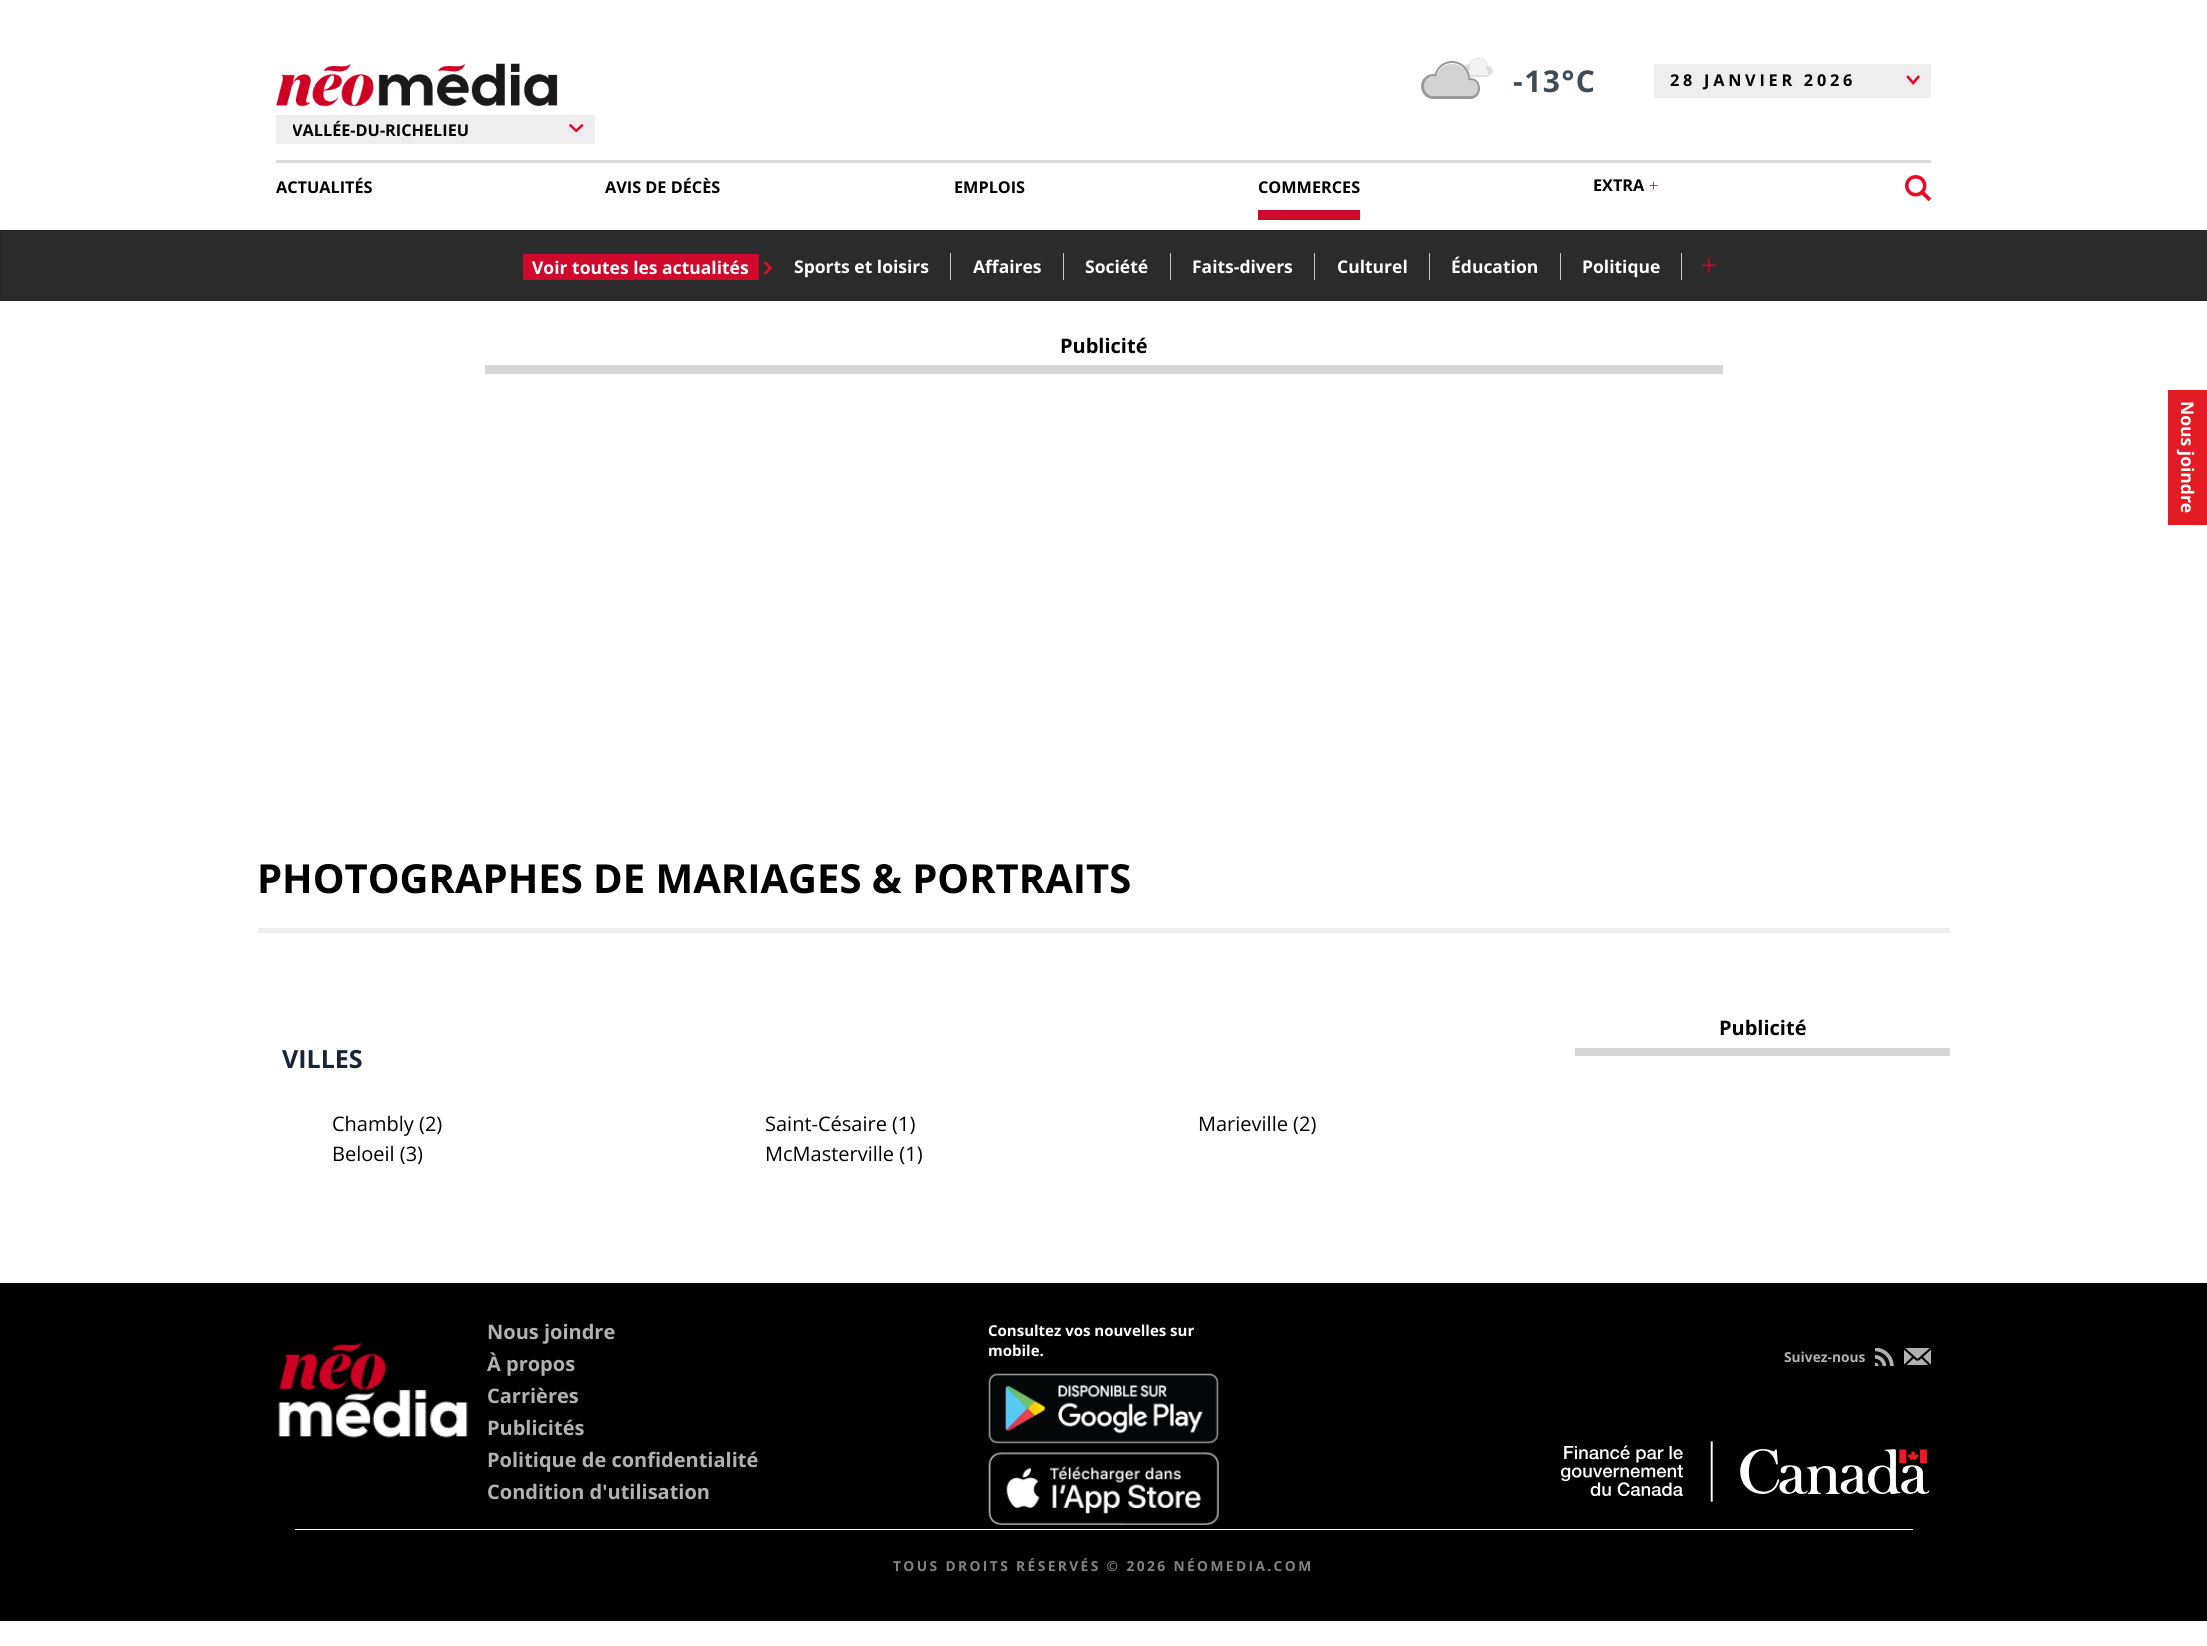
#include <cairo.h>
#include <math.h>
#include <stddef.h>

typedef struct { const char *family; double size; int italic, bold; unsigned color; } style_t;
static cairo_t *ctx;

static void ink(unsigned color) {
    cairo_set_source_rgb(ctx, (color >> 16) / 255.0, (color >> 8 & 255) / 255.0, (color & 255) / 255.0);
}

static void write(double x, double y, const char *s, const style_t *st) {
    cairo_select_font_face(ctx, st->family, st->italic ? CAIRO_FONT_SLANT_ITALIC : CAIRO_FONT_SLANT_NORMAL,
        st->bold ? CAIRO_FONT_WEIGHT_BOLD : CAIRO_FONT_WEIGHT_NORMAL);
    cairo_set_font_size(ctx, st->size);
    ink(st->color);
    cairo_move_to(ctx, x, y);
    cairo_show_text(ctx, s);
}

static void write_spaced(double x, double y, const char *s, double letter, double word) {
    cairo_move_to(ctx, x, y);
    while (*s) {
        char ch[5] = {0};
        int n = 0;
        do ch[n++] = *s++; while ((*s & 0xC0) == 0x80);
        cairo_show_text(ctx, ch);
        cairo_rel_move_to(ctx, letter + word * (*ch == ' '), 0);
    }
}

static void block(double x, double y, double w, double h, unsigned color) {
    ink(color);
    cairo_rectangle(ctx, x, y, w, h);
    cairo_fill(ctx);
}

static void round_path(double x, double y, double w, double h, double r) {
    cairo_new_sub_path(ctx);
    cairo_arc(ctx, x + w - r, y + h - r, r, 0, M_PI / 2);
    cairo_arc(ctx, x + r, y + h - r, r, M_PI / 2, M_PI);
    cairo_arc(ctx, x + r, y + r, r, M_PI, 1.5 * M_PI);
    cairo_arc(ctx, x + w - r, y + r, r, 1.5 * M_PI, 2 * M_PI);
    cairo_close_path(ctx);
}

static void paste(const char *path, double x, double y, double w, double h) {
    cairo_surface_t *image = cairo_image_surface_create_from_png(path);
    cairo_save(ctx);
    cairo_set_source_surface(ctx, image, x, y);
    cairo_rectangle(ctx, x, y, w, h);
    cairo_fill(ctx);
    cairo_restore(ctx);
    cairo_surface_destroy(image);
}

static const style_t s1 = {"Open Sans", 16.25, 0, 1, 0x000000};
static const style_t s2 = {"Open Sans", 17.5, 0, 1, 0xffffff};
static const style_t s3 = {"Liberation Serif", 32, 0, 0, 0xd00025};
static const style_t s4 = {"Liberation Serif", 16.25, 0, 0, 0xd00025};
static const style_t s5 = {"Open Sans", 20, 0, 1, 0x000000};
static const style_t s6 = {"Open Sans", 40, 0, 1, 0x000000};
static const style_t s7 = {"Open Sans", 25, 0, 1, 0x182539};
static const style_t s8 = {"Open Sans", 20, 0, 0, 0x000000};
static const style_t s9 = {"Open Sans", 20, 0, 1, 0xb1b1b1};
static const style_t s10 = {"Open Sans", 15, 0, 1, 0xffffff};
static const style_t s11 = {"Open Sans", 13.75, 0, 1, 0xb1b1b1};

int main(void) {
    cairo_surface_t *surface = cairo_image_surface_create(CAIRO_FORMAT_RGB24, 2207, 1646);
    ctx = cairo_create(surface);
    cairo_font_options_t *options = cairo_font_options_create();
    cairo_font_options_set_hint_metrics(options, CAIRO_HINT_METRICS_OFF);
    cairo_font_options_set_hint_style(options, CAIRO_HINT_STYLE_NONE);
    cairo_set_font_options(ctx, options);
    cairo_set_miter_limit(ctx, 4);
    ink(0xffffff);
    cairo_paint(ctx);
    ink(0xe0e0e0);
    cairo_new_path(ctx);
    cairo_move_to(ctx, 1488, 66);
    cairo_line_to(ctx, 1486, 66.5);
    cairo_curve_to(ctx, 1486.5, 69, 1485.5, 71.5, 1483.5, 73);
    cairo_curve_to(ctx, 1486, 79.5, 1496, 74, 1492, 68);
    cairo_curve_to(ctx, 1491, 67, 1489.5, 66, 1488, 66);
    cairo_close_path(ctx);
    cairo_move_to(ctx, 1469, 64);
    cairo_curve_to(ctx, 1467.5, 64, 1466, 64.5, 1465, 66);
    cairo_curve_to(ctx, 1458.5, 72, 1468.5, 80, 1474, 73.5);
    cairo_curve_to(ctx, 1470.5, 71.5, 1469.5, 67.5, 1470.5, 64);
    cairo_close_path(ctx);
    cairo_fill(ctx);
    round_path(1469.5, 58.5, 18, 17, 8.5);
    cairo_set_line_width(ctx, 1);
    cairo_stroke(ctx);
    cairo_set_source_rgba(ctx, 0.827, 0.827, 0.827, 0.3);
    cairo_new_path(ctx);
    cairo_move_to(ctx, 1487.5, 68);
    cairo_line_to(ctx, 1486, 68.5);
    cairo_curve_to(ctx, 1486, 70, 1485, 71, 1484, 72.5);
    cairo_curve_to(ctx, 1485.5, 77.5, 1493.5, 74, 1490.5, 69.5);
    cairo_curve_to(ctx, 1490, 68.5, 1488.5, 68, 1487.5, 68);
    cairo_close_path(ctx);
    cairo_move_to(ctx, 1469, 65);
    cairo_curve_to(ctx, 1467.5, 65, 1466.5, 65.5, 1465.5, 66.5);
    cairo_curve_to(ctx, 1460.5, 71.5, 1469, 78.5, 1473, 73);
    cairo_curve_to(ctx, 1470.5, 71, 1469.5, 68, 1470, 65);
    cairo_close_path(ctx);
    cairo_fill(ctx);
    ink(0xf2f2f2);
    cairo_arc(ctx, 1478, 67, 8, 0, 2 * M_PI);
    cairo_fill(ctx);
    ink(0xe0e0e0);
    cairo_new_path(ctx);
    cairo_move_to(ctx, 1469, 75);
    cairo_line_to(ctx, 1469, 77);
    cairo_line_to(ctx, 1488, 77);
    cairo_line_to(ctx, 1488, 74);
    cairo_line_to(ctx, 1488, 75);
    cairo_close_path(ctx);
    cairo_fill(ctx);
    block(1468, 70, 20, 5, 0xf2f2f2);
    ink(0x999999);
    cairo_new_path(ctx);
    cairo_move_to(ctx, 1470, 78);
    cairo_line_to(ctx, 1467.5, 78.5);
    cairo_curve_to(ctx, 1468, 84, 1465.5, 90, 1461, 93);
    cairo_curve_to(ctx, 1465.5, 103, 1479.5, 100, 1480, 89);
    cairo_curve_to(ctx, 1480, 86.5, 1479.5, 84.5, 1478.5, 82.5);
    cairo_curve_to(ctx, 1476.5, 79.5, 1473.5, 78, 1470, 78);
    cairo_close_path(ctx);
    cairo_move_to(ctx, 1433, 74);
    cairo_curve_to(ctx, 1429, 74, 1425.5, 76, 1423, 79.5);
    cairo_curve_to(ctx, 1421.5, 81.5, 1421, 84.5, 1421, 87);
    cairo_curve_to(ctx, 1422, 99, 1436.5, 103.5, 1443, 93.5);
    cairo_curve_to(ctx, 1437, 89.5, 1435, 81.5, 1437, 74.5);
    cairo_close_path(ctx);
    cairo_fill(ctx);
    round_path(1435, 62, 34, 36, 17);
    cairo_set_line_width(ctx, 2);
    cairo_stroke(ctx);
    ink(0xd3d3d3);
    cairo_new_path(ctx);
    cairo_move_to(ctx, 1470.5, 80);
    cairo_line_to(ctx, 1467.5, 80.5);
    cairo_curve_to(ctx, 1467.5, 84.5, 1466, 88, 1463.5, 91);
    cairo_curve_to(ctx, 1464, 93, 1466, 95, 1468, 95.5);
    cairo_curve_to(ctx, 1479.5, 99.5, 1482, 80, 1470.5, 80);
    cairo_close_path(ctx);
    cairo_move_to(ctx, 1433.5, 76);
    cairo_curve_to(ctx, 1431, 76, 1428.5, 77, 1427, 79);
    cairo_curve_to(ctx, 1425, 80.5, 1424, 83, 1424, 85.5);
    cairo_curve_to(ctx, 1423.5, 95.5, 1435.5, 100, 1441.5, 92);
    cairo_curve_to(ctx, 1437, 88, 1435.5, 82, 1436.5, 76.5);
    cairo_close_path(ctx);
    cairo_fill(ctx);
    cairo_arc(ctx, 1452, 80, 16, 0, 2 * M_PI);
    cairo_fill(ctx);
    block(1433, 96, 37, 3, 0x999999);
    block(1431, 88, 40, 8, 0xd3d3d3);
    cairo_select_font_face(ctx, "Open Sans", CAIRO_FONT_SLANT_NORMAL, CAIRO_FONT_WEIGHT_BOLD);
    cairo_set_font_size(ctx, 30);
    ink(0x3e4c57);
    write_spaced(1513, 92, "-13°C", 1.5, 0);
    block(1654, 64, 277, 34, 0xeeeeee);
    cairo_set_font_size(ctx, 16.25);
    ink(0x000000);
    write_spaced(1670, 86, "28 JANVIER 2026", 3.75, 0);
    paste("pic1.png", 1906, 75, 14, 10);
    paste("pic2.png", 276, 63, 282, 44);
    block(276, 115, 319, 29, 0xeeeeee);
    cairo_save(ctx);
    cairo_rectangle(ctx, 293, 118, 286, 25);
    cairo_clip(ctx);
    write(292, 136, "VALLÉE-DU-RICHELIEU", &s1);
    cairo_restore(ctx);
    paste("pic3.png", 569, 124, 15, 9);
    block(276, 160, 1655, 3, 0xdbdbdb);
    write(276, 193, "ACTUALITÉS", &s1);
    ink(0x2b2b2b);
    cairo_rectangle(ctx, 0.5, 230.5, 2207, 70);
    cairo_fill_preserve(ctx);
    ink(0x252525);
    cairo_set_line_width(ctx, 1);
    cairo_stroke(ctx);
    ink(0xce092c);
    round_path(523, 254, 236, 26, 1);
    cairo_fill(ctx);
    write(532, 274, "Voir toutes les actualités", &s2);
    cairo_new_path(ctx);
    cairo_move_to(ctx, 764.5, 274);
    cairo_line_to(ctx, 770.5, 268);
    cairo_line_to(ctx, 764.5, 262);
    ink(0xec0928);
    cairo_set_line_width(ctx, 2.4);
    cairo_stroke(ctx);
    write(794, 273, "Sports et loisirs", &s2);
    block(950, 253, 1, 27, 0xc7c7c7);
    write(973, 273, "Affaires", &s2);
    block(1063, 253, 1, 27, 0xc7c7c7);
    write(1085, 273, "Société", &s2);
    block(1170, 253, 1, 27, 0xc7c7c7);
    write(1192, 273, "Faits-divers", &s2);
    block(1314, 253, 1, 27, 0xc7c7c7);
    write(1337, 273, "Culturel", &s2);
    block(1429, 253, 1, 27, 0xc7c7c7);
    write(1451, 273, "Éducation", &s2);
    block(1560, 253, 1, 27, 0xc7c7c7);
    write(1582, 273, "Politique", &s2);
    block(1681, 253, 1, 27, 0xc7c7c7);
    write(1700, 276, "+", &s3);
    paste("pic4.png", 1905, 175, 26, 26);
    write(605, 193, "AVIS DE DÉCÈS", &s1);
    write(954, 193, "EMPLOIS", &s1);
    block(1258, 210, 102, 10, 0xce092c);
    write(1258, 193, "COMMERCES", &s1);
    write(1593, 191, "EXTRA", &s1);
    write(1649, 191, "+", &s4);
    write(1060, 353, "Publicité", &s5);
    block(485, 365, 1238, 9, 0xd6d6d6);
    write(257, 893, "PHOTOGRAPHES DE MARIAGES & PORTRAITS", &s6);
    block(258, 928, 1692, 5, 0xeeeeee);
    write(1719, 1035, "Publicité", &s5);
    block(1575, 1048, 375, 8, 0xd6d6d6);
    write(282, 1068, "VILLES", &s7);
    write(332, 1131, "Chambly (2)", &s8);
    write(332, 1161, "Beloeil (3)", &s8);
    write(765, 1131, "Saint-Césaire (1)", &s8);
    write(765, 1161, "McMasterville (1)", &s8);
    write(1198, 1131, "Marieville (2)", &s8);
    block(2168, 390, 39, 135, 0xe31b23);
    cairo_save(ctx);
    cairo_translate(ctx, 2181, 401);
    cairo_rotate(ctx, 90 * M_PI / 180);
    write(0, 0, "Nous joindre", &s2);
    cairo_restore(ctx);
    block(0, 1283, 2207, 338, 0x000000);
    paste("pic5.png", 278, 1342, 190, 96);
    write(487, 1339, "Nous joindre", &s9);
    write(487, 1371, "À propos", &s9);
    write(487, 1403, "Carrières", &s9);
    write(487, 1435, "Publicités", &s9);
    write(487, 1467, "Politique de confidentialité", &s9);
    write(487, 1499, "Condition d'utilisation", &s9);
    write(988, 1336, "Consultez vos nouvelles sur", &s10);
    write(988, 1356, "mobile.", &s10);
    paste("pic6.png", 988, 1373, 231, 71);
    paste("pic7.png", 988, 1452, 231, 73);
    write(1784, 1362, "Suivez-nous", &s11);
    paste("pic8.png", 1875, 1348, 19, 18);
    paste("pic9.png", 1904, 1348, 27, 17);
    paste("pic10.png", 1561, 1441, 369, 61);
    block(295, 1529, 1618, 1, 0xffffff);
    ink(0x838383);
    write_spaced(893, 1571, "TOUS DROITS RÉSERVÉS © 2026 NÉOMEDIA.COM", 2.4, 0);
    cairo_surface_write_to_png(surface, "screenshot.png");
    cairo_font_options_destroy(options);
    cairo_destroy(ctx);
    cairo_surface_destroy(surface);
    return 0;
}
